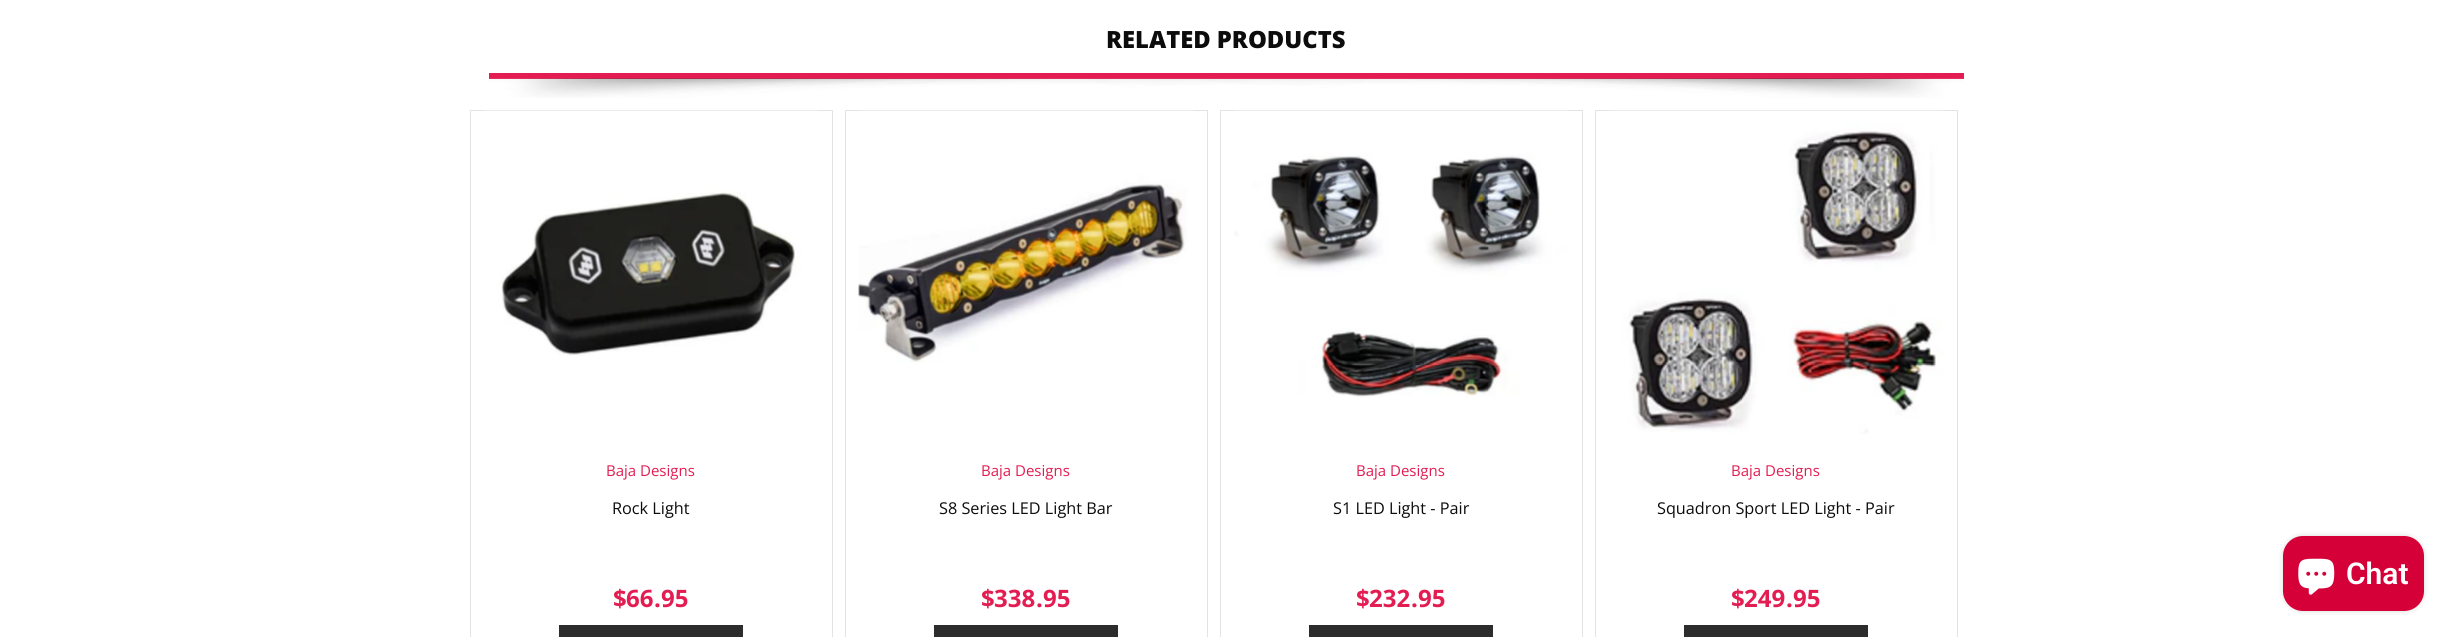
#include <cairo.h>
#include <math.h>
#include <stddef.h>

typedef struct { const char *family; double size; int italic, bold; unsigned color; } style_t;
static cairo_t *ctx;

static void ink(unsigned color) {
    cairo_set_source_rgb(ctx, (color >> 16) / 255.0, (color >> 8 & 255) / 255.0, (color & 255) / 255.0);
}

static void write(double x, double y, const char *s, const style_t *st) {
    cairo_select_font_face(ctx, st->family, st->italic ? CAIRO_FONT_SLANT_ITALIC : CAIRO_FONT_SLANT_NORMAL,
        st->bold ? CAIRO_FONT_WEIGHT_BOLD : CAIRO_FONT_WEIGHT_NORMAL);
    cairo_set_font_size(ctx, st->size);
    ink(st->color);
    cairo_move_to(ctx, x, y);
    cairo_show_text(ctx, s);
}

static void block(double x, double y, double w, double h, unsigned color) {
    ink(color);
    cairo_rectangle(ctx, x, y, w, h);
    cairo_fill(ctx);
}

static void round_path(double x, double y, double w, double h, double r) {
    cairo_new_sub_path(ctx);
    cairo_arc(ctx, x + w - r, y + h - r, r, 0, M_PI / 2);
    cairo_arc(ctx, x + r, y + h - r, r, M_PI / 2, M_PI);
    cairo_arc(ctx, x + r, y + r, r, M_PI, 1.5 * M_PI);
    cairo_arc(ctx, x + w - r, y + r, r, 1.5 * M_PI, 2 * M_PI);
    cairo_close_path(ctx);
}

static void blur_box(double x, double y, double w, double h, double r, double blur, double alpha) {
    cairo_push_group_with_content(ctx, CAIRO_CONTENT_ALPHA);
    cairo_set_operator(ctx, CAIRO_OPERATOR_SOURCE);
    for (int i = 15; i >= -15 && fmin(w, h) + blur * i / 3 > 0; i -= 2) {
        double e = blur * i / 6;
        cairo_set_source_rgba(ctx, 0, 0, 0, alpha * erfc((i - 1) / 8.5) / 2);
        round_path(x - e, y - e, w + 2 * e, h + 2 * e, fmax(0, fmin(r + e + blur * .6, fmin(w, h) / 2 + e)));
        cairo_fill(ctx);
    }
    cairo_pattern_t *soft = cairo_pop_group(ctx);
    cairo_mask(ctx, soft);
    cairo_pattern_destroy(soft);
}

static void paste(const char *path, double x, double y, double w, double h) {
    cairo_surface_t *image = cairo_image_surface_create_from_png(path);
    cairo_save(ctx);
    cairo_set_source_surface(ctx, image, x, y);
    cairo_rectangle(ctx, x, y, w, h);
    cairo_fill(ctx);
    cairo_restore(ctx);
    cairo_surface_destroy(image);
}

static const style_t s1 = {"Open Sans ExtraBold", 23.75, 0, 0, 0x0c0c0c};
static const style_t s2 = {"Open Sans", 15, 0, 0, 0xe31d52};
static const style_t s3 = {"Open Sans", 16.25, 0, 0, 0x0c0c0c};
static const style_t s4 = {"Open Sans", 24, 0, 1, 0xe31d52};
static const style_t s5 = {"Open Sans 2", 24, 0, 1, 0xe31d52};
static const style_t s6 = {"Roboto SemiBold", 30, 0, 0, 0xffffff};

int main(void) {
    cairo_surface_t *surface = cairo_image_surface_create(CAIRO_FORMAT_RGB24, 2451, 637);
    ctx = cairo_create(surface);
    cairo_font_options_t *options = cairo_font_options_create();
    cairo_font_options_set_hint_metrics(options, CAIRO_HINT_METRICS_OFF);
    cairo_font_options_set_hint_style(options, CAIRO_HINT_STYLE_NONE);
    cairo_set_font_options(ctx, options);
    cairo_set_miter_limit(ctx, 4);
    cairo_pattern_t *gradient;
    ink(0xffffff);
    cairo_paint(ctx);
    block(489, 73, 1475, 6, 0xe31d52);
    write(1106, 48, "RELATED PRODUCTS", &s1);
    paste("pic1.png", 489, 78, 1475, 20);
    cairo_rectangle(ctx, 470.5, 110.5, 362, 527);
    ink(0xe3e3e3);
    cairo_set_line_width(ctx, 1);
    cairo_stroke(ctx);
    paste("pic2.png", 484, 110, 335, 246);
    write(606, 476, "Baja Designs", &s2);
    write(612, 514, "Rock Light", &s3);
    write(613, 607, "$", &s4);
    write(626, 607, "66", &s5);
    write(654, 607, ".", &s4);
    write(661, 607, "95", &s5);
    gradient = cairo_pattern_create_linear(651, 625, 651, 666);
    cairo_pattern_add_color_stop_rgba(gradient, 0, 0.173, 0.173, 0.173, 1);
    cairo_pattern_add_color_stop_rgba(gradient, 0.5, 0.176, 0.176, 0.176, 1);
    cairo_pattern_add_color_stop_rgba(gradient, 0.5, 0.129, 0.129, 0.129, 1);
    cairo_pattern_add_color_stop_rgba(gradient, 1, 0.204, 0.204, 0.204, 1);
    cairo_set_source(ctx, gradient);
    cairo_pattern_destroy(gradient);
    cairo_rectangle(ctx, 559, 625, 184, 12);
    cairo_fill(ctx);
    cairo_rectangle(ctx, 845.5, 110.5, 362, 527);
    ink(0xe3e3e3);
    cairo_stroke(ctx);
    paste("pic3.png", 858, 110, 336, 253);
    write(981, 476, "Baja Designs", &s2);
    write(939, 514, "S8 Series LED Light Bar", &s3);
    write(981, 607, "$", &s4);
    write(994, 607, "338", &s5);
    write(1036, 607, ".", &s4);
    write(1043, 607, "95", &s5);
    gradient = cairo_pattern_create_linear(1026, 625, 1026, 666);
    cairo_pattern_add_color_stop_rgba(gradient, 0, 0.173, 0.173, 0.173, 1);
    cairo_pattern_add_color_stop_rgba(gradient, 0.5, 0.176, 0.176, 0.176, 1);
    cairo_pattern_add_color_stop_rgba(gradient, 0.5, 0.129, 0.129, 0.129, 1);
    cairo_pattern_add_color_stop_rgba(gradient, 1, 0.204, 0.204, 0.204, 1);
    cairo_set_source(ctx, gradient);
    cairo_pattern_destroy(gradient);
    cairo_rectangle(ctx, 934, 625, 184, 12);
    cairo_fill(ctx);
    cairo_rectangle(ctx, 1220.5, 110.5, 362, 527);
    ink(0xe3e3e3);
    cairo_stroke(ctx);
    paste("pic4.png", 1234, 110, 335, 288);
    write(1356, 476, "Baja Designs", &s2);
    write(1333, 514, "S1 LED Light - Pair", &s3);
    write(1356, 607, "$", &s4);
    write(1369, 607, "232", &s5);
    write(1411, 607, ".", &s4);
    write(1418, 607, "95", &s5);
    gradient = cairo_pattern_create_linear(1401, 625, 1401, 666);
    cairo_pattern_add_color_stop_rgba(gradient, 0, 0.173, 0.173, 0.173, 1);
    cairo_pattern_add_color_stop_rgba(gradient, 0.5, 0.176, 0.176, 0.176, 1);
    cairo_pattern_add_color_stop_rgba(gradient, 0.5, 0.129, 0.129, 0.129, 1);
    cairo_pattern_add_color_stop_rgba(gradient, 1, 0.204, 0.204, 0.204, 1);
    cairo_set_source(ctx, gradient);
    cairo_pattern_destroy(gradient);
    cairo_rectangle(ctx, 1309, 625, 184, 12);
    cairo_fill(ctx);
    cairo_rectangle(ctx, 1595.5, 110.5, 362, 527);
    ink(0xe3e3e3);
    cairo_stroke(ctx);
    paste("pic5.png", 1609, 110, 335, 324);
    write(1731, 476, "Baja Designs", &s2);
    write(1657, 514, "Squadron Sport LED Light - Pair", &s3);
    write(1731, 607, "$", &s4);
    write(1744, 607, "249", &s5);
    write(1786, 607, ".", &s4);
    write(1793, 607, "95", &s5);
    gradient = cairo_pattern_create_linear(1776, 625, 1776, 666);
    cairo_pattern_add_color_stop_rgba(gradient, 0, 0.173, 0.173, 0.173, 1);
    cairo_pattern_add_color_stop_rgba(gradient, 0.5, 0.176, 0.176, 0.176, 1);
    cairo_pattern_add_color_stop_rgba(gradient, 0.5, 0.129, 0.129, 0.129, 1);
    cairo_pattern_add_color_stop_rgba(gradient, 1, 0.204, 0.204, 0.204, 1);
    cairo_set_source(ctx, gradient);
    cairo_pattern_destroy(gradient);
    cairo_rectangle(ctx, 1684, 625, 184, 12);
    cairo_fill(ctx);
    ink(0x000000);
    blur_box(2283, 536, 141, 75, 20, 3, 0.15);
    ink(0xd60038);
    round_path(2283, 536, 141, 75, 20);
    cairo_fill(ctx);
    paste("pic6.png", 2298, 558, 37, 37);
    write(2346, 584, "Chat", &s6);
    cairo_surface_write_to_png(surface, "screenshot.png");
    cairo_font_options_destroy(options);
    cairo_destroy(ctx);
    cairo_surface_destroy(surface);
    return 0;
}
